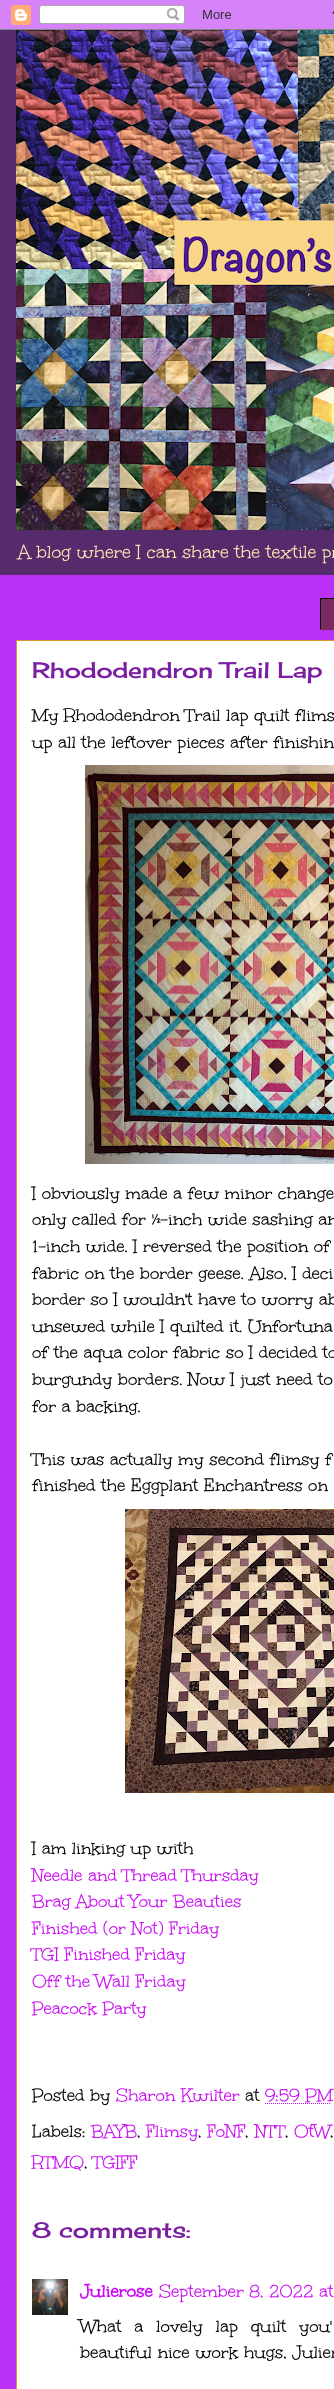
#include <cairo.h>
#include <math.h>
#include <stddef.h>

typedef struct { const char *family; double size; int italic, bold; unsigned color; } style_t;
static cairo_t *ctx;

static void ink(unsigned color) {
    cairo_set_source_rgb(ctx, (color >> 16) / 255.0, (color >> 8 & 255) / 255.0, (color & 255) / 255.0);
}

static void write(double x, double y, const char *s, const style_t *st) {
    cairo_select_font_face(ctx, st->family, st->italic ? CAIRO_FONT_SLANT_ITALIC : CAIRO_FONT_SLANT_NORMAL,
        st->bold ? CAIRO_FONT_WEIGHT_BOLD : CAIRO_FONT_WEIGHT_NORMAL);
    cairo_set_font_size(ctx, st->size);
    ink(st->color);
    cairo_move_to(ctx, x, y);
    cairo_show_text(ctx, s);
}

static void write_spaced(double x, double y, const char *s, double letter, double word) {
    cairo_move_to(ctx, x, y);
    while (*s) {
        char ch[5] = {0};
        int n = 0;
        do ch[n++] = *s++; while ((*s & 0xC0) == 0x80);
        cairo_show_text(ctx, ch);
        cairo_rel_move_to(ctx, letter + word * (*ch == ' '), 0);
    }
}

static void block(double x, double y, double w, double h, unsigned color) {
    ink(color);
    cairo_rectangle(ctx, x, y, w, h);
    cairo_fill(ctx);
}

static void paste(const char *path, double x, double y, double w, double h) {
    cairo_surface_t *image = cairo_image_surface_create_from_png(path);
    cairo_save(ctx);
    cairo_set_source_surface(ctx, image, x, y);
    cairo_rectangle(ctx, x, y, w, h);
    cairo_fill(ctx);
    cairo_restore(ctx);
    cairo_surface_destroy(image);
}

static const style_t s1 = {"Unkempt", 20, 0, 0, 0xfce8b2};
static const style_t s2 = {"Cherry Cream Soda", 22, 0, 0, 0x7b1fa2};
static const style_t s3 = {"Unkempt", 19, 0, 0, 0x000000};
static const style_t s4 = {"Unkempt", 19, 0, 0, 0xcb0cf3};
static const style_t s5 = {"Unkempt", 19, 0, 1, 0xcb0cf3};

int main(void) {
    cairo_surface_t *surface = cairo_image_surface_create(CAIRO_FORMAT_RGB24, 334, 2389);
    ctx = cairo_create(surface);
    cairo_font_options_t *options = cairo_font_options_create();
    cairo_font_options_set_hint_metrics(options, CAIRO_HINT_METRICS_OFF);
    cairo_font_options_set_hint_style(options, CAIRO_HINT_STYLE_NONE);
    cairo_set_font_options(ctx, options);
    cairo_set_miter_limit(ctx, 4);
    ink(0xbb30f6);
    cairo_paint(ctx);
    paste("pic1.png", 0, 0, 334, 30);
    block(0, 30, 334, 545, 0x562b6c);
    paste("pic2.png", 16, 30, 318, 500);
    write(18, 559, "A blog where I can share the textile pr", &s1);
    ink(0xffffff);
    cairo_rectangle(ctx, 16.5, 640.5, 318, 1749);
    cairo_fill_preserve(ctx);
    ink(0xdc9522);
    cairo_set_line_width(ctx, 1);
    cairo_stroke(ctx);
    block(320, 599, 14, 31, 0x7a2b62);
    block(320, 598, 14, 1, 0x000000);
    block(320, 599, 1, 30, 0x000000);
    write(32, 678, "Rhododendron Trail Lap", &s2);
    write(32, 722, "My Rhododendron Trail lap quilt flims", &s3);
    write(32, 749, "up all the leftover pieces after finishin", &s3);
    paste("pic3.png", 85, 765, 249, 399);
    write(32, 1200, "I obviously made a few minor change", &s3);
    write(32, 1226, "only called for ½-inch wide sashing an", &s3);
    write(32, 1253, "1-inch wide. I reversed the position of", &s3);
    write(32, 1280, "fabric on the border geese. Also, I deci", &s3);
    write(32, 1306, "border so I wouldn't have to worry ab", &s3);
    write(32, 1333, "unsewed while I quilted it. Unfortuna", &s3);
    write(32, 1359, "of the aqua color fabric so I decided to", &s3);
    write(32, 1386, "burgundy borders. Now I just need to", &s3);
    write(32, 1413, "for a backing.", &s3);
    write(32, 1466, "This was actually my second flimsy f", &s3);
    write(32, 1492, "finished the Eggplant Enchantress on", &s3);
    paste("pic4.png", 125, 1509, 209, 284);
    write(32, 1855, "I am linking up with", &s3);
    write(32, 1882, "Needle and Thread Thursday", &s4);
    write(32, 1908, "Brag About Your Beauties", &s4);
    write(32, 1935, "Finished (or Not) Friday", &s4);
    write(32, 1961, "TGI Finished Friday", &s4);
    write(32, 1988, "Off the Wall Friday", &s4);
    write(32, 2015, "Peacock Party", &s4);
    write(32, 2102, "Posted by", &s3);
    write(116, 2102, "Sharon Kwilter", &s4);
    write(245, 2102, "at", &s3);
    write(265, 2102, "9:59 PM", &s4);
    cairo_new_path(ctx);
    cairo_move_to(ctx, 265, 2103.5);
    cairo_line_to(ctx, 330, 2103.5);
    cairo_set_dash(ctx, (double[]){1, 1}, 2, 0);
    cairo_stroke(ctx);
    write(32, 2138, "Labels:", &s3);
    write(91, 2138, "BAYB", &s4);
    write(137, 2138, ",", &s3);
    write(146, 2138, "Flimsy", &s4);
    write(198, 2138, ",", &s3);
    write(207, 2138, "FoNF", &s4);
    write(245, 2138, ",", &s3);
    write(255, 2138, "NTT", &s4);
    write(285, 2138, ",", &s3);
    write(294, 2138, "OtW", &s4);
    write(330, 2138, ",", &s3);
    write(32, 2169, "RTMQ", &s4);
    write(84, 2169, ",", &s3);
    write(93, 2169, "TGIFF", &s4);
    write(32, 2238, "8 comments:", &s2);
    paste("pic5.png", 32, 2279, 36, 36);
    write(80, 2298, "Julierose", &s5);
    write(159, 2298, "September 8, 2022 at", &s4);
    ink(0x000000);
    write_spaced(80, 2333, "What a lovely lap quilt you'", 0, 7.25);
    write(80, 2359, "beautiful nice work hugs, Julier", &s3);
    cairo_surface_write_to_png(surface, "screenshot.png");
    cairo_font_options_destroy(options);
    cairo_destroy(ctx);
    cairo_surface_destroy(surface);
    return 0;
}
